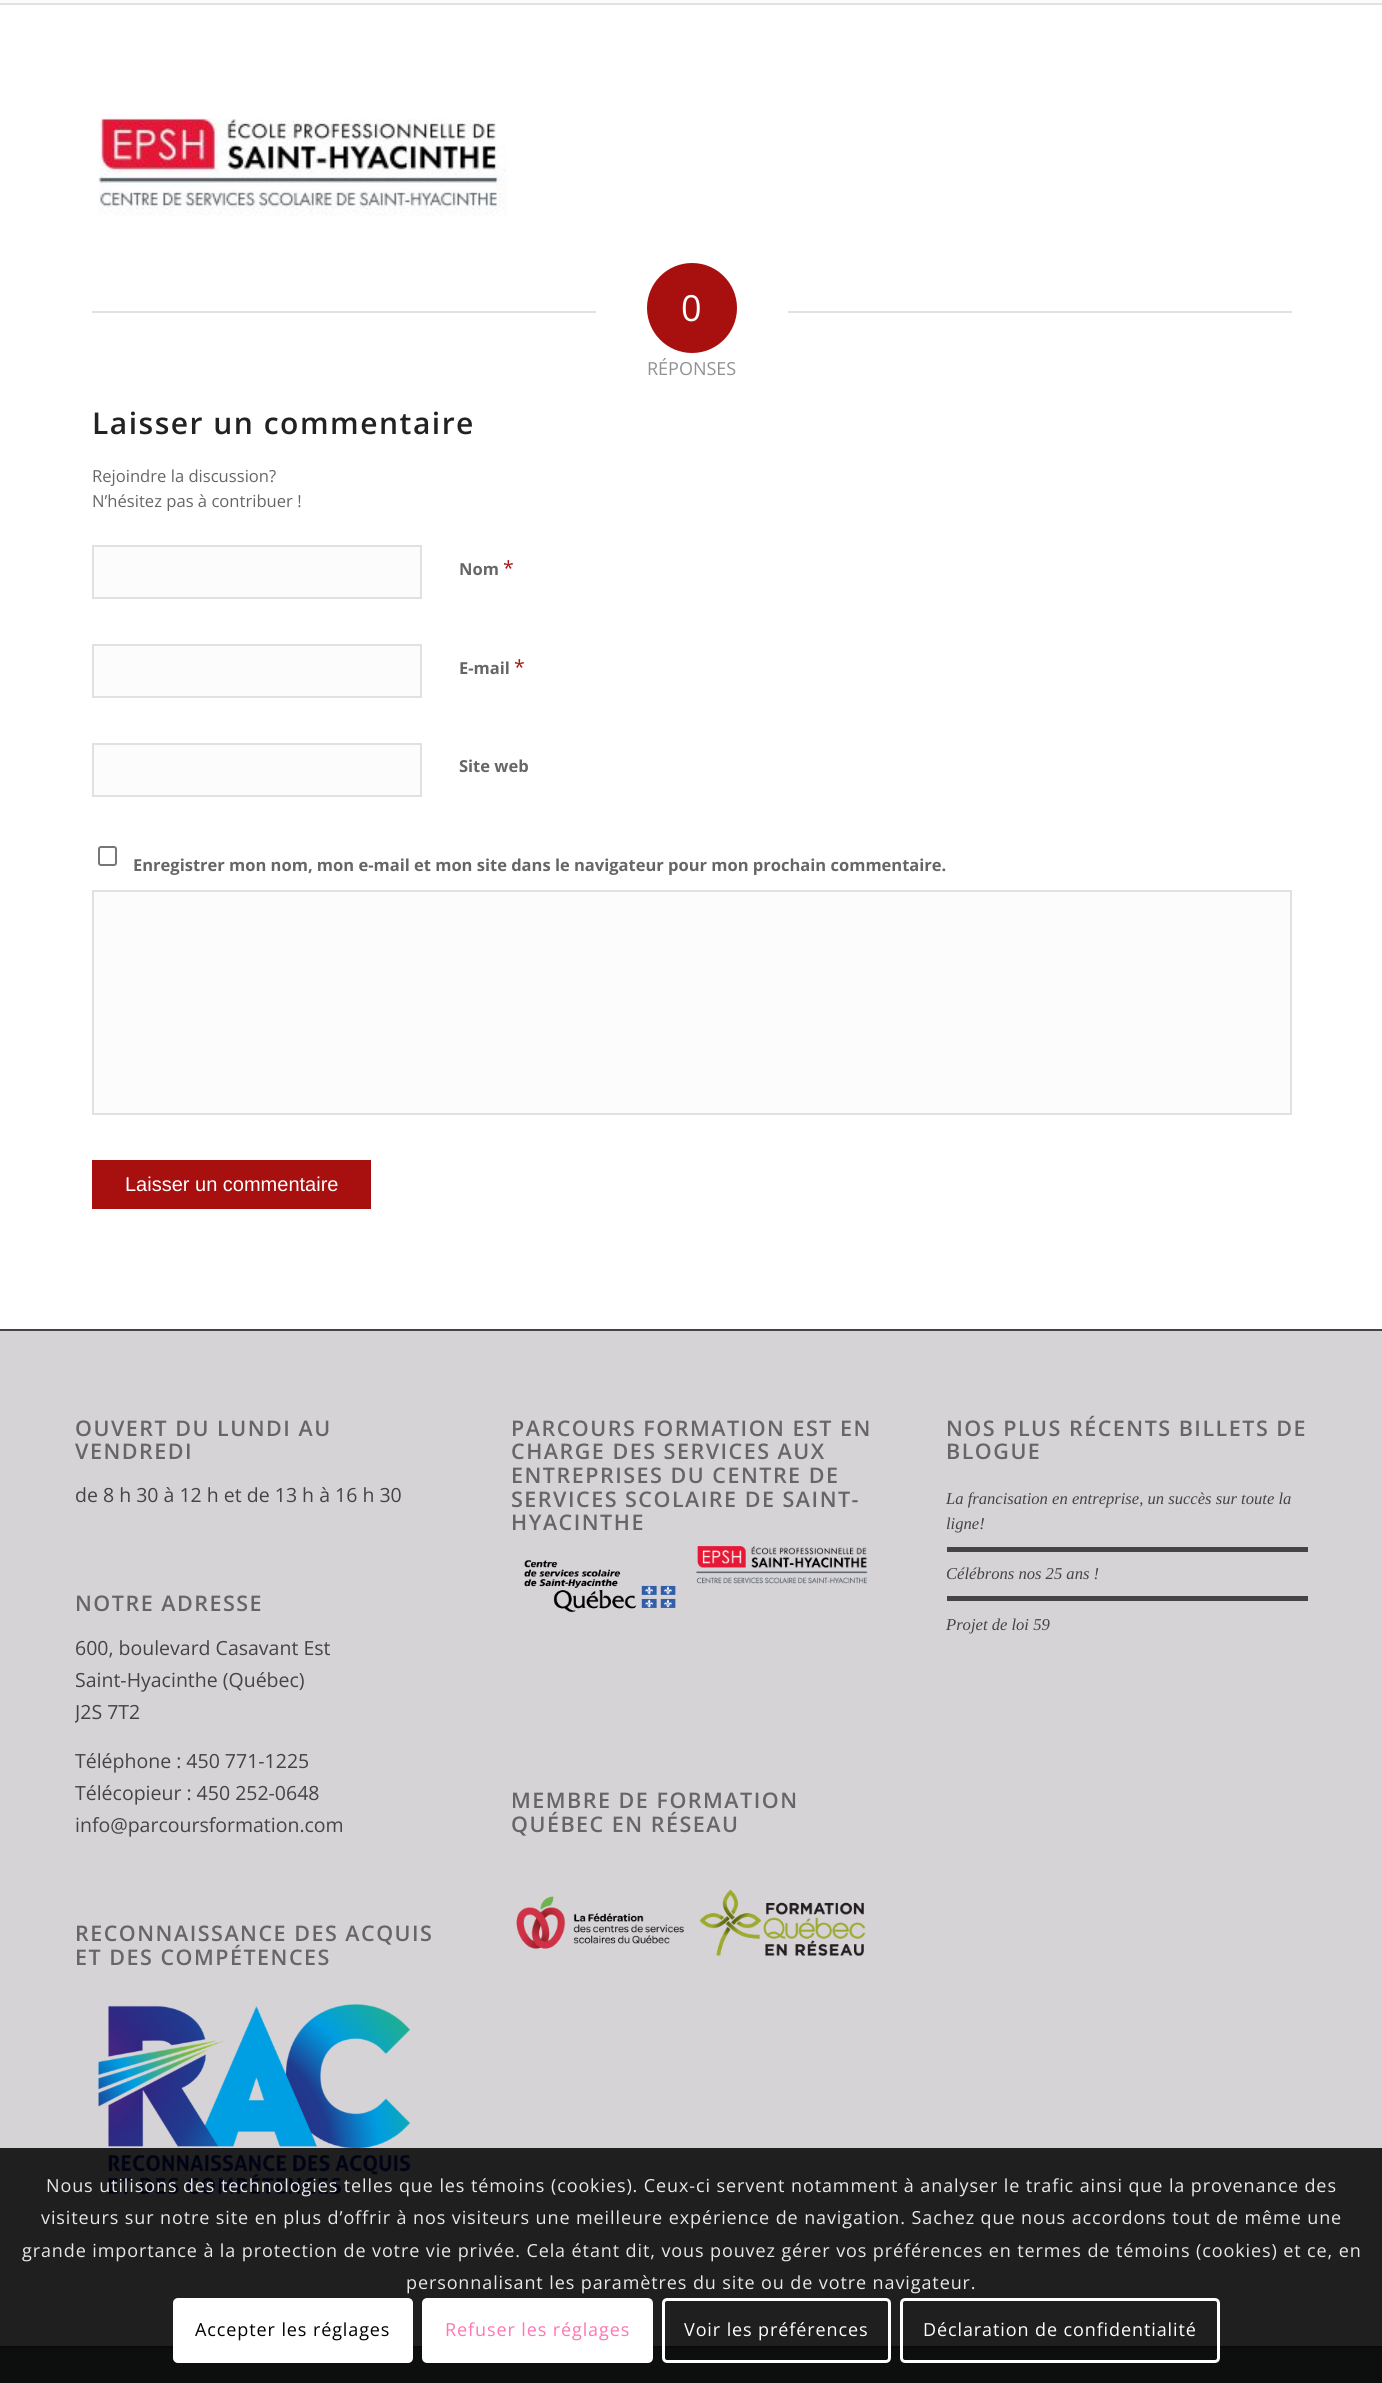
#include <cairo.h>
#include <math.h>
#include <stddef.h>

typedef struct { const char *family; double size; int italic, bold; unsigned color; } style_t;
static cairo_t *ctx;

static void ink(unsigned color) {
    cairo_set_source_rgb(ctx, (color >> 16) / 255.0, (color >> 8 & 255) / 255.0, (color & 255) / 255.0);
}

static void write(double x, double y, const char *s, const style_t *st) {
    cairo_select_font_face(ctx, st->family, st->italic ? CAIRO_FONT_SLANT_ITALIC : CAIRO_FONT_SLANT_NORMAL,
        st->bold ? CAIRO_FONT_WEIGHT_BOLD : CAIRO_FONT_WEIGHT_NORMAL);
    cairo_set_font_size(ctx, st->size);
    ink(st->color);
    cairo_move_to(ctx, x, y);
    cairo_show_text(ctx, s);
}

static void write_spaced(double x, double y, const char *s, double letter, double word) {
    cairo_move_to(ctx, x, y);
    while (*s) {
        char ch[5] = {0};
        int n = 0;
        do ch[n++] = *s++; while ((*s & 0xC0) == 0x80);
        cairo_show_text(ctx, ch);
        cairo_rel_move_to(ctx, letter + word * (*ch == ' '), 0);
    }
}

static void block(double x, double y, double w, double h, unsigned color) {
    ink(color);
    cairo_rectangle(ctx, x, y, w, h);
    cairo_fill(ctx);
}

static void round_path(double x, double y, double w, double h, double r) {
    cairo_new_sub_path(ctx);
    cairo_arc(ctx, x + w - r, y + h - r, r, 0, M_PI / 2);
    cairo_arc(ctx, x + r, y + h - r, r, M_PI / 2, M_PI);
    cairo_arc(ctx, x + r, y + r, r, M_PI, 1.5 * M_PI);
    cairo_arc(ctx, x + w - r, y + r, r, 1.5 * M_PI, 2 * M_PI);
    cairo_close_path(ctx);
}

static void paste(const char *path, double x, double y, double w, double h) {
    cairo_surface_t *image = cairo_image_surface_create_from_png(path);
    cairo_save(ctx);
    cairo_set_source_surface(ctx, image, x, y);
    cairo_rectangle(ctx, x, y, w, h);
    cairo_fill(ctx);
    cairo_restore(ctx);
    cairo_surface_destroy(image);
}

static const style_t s1 = {"Open Sans", 36, 0, 0, 0xffffff};
static const style_t s2 = {"Open Sans", 18, 0, 0, 0x919191};
static const style_t s3 = {"Open Sans", 16.6, 0, 0, 0x666666};
static const style_t s4 = {"Open Sans", 16.5, 0, 1, 0x666666};
static const style_t s5 = {"Open Sans", 19.5, 0, 0, 0xa81010};
static const style_t s6 = {"Liberation Sans", 20, 0, 0, 0xffffff};
static const style_t s7 = {"Open Sans", 19.5, 0, 0, 0x444444};
static const style_t s8 = {"Liberation Serif", 16.6, 1, 0, 0x444444};

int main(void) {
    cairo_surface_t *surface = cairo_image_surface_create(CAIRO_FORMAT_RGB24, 1382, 2383);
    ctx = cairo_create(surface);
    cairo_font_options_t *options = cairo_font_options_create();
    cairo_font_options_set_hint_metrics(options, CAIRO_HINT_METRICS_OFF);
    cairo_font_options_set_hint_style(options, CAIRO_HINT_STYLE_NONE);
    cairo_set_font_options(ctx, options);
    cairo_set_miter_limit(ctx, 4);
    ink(0xffffff);
    cairo_paint(ctx);
    block(0, 0, 1382, 3, 0xfcfcfc);
    block(0, 3, 1382, 2, 0xe1e1e1);
    paste("pic1.png", 98, 118, 409, 98);
    block(92, 311, 504, 2, 0xe1e1e1);
    ink(0xa81010);
    cairo_arc(ctx, 692, 308, 45, 0, 2 * M_PI);
    cairo_fill(ctx);
    write(681, 321, "0", &s1);
    block(788, 311, 504, 2, 0xe1e1e1);
    write(647, 375, "RÉPONSES", &s2);
    cairo_select_font_face(ctx, "Open Sans SemiBold", CAIRO_FONT_SLANT_NORMAL, CAIRO_FONT_WEIGHT_NORMAL);
    cairo_set_font_size(ctx, 30);
    ink(0x222222);
    write_spaced(92, 434, "Laisser un commentaire", 1.5, 0);
    write(92, 482, "Rejoindre la discussion?", &s3);
    write(92, 507, "N’hésitez pas à contribuer !", &s3);
    ink(0xfcfcfc);
    cairo_rectangle(ctx, 93, 546, 328, 52);
    cairo_fill_preserve(ctx);
    ink(0xe1e1e1);
    cairo_stroke(ctx);
    write(459, 575, "Nom", &s4);
    write(503, 575, "*", &s5);
    ink(0xfcfcfc);
    cairo_rectangle(ctx, 93, 645, 328, 52);
    cairo_fill_preserve(ctx);
    ink(0xe1e1e1);
    cairo_stroke(ctx);
    write(459, 674, "E-mail", &s4);
    write(514, 674, "*", &s5);
    ink(0xfcfcfc);
    cairo_rectangle(ctx, 93, 744, 328, 52);
    cairo_fill_preserve(ctx);
    ink(0xe1e1e1);
    cairo_stroke(ctx);
    write(459, 772, "Site web", &s4);
    round_path(99, 847, 17, 18, 2);
    ink(0x767676);
    cairo_stroke(ctx);
    write(133, 871, "Enregistrer mon nom, mon e-mail et mon site dans le navigateur pour mon prochain commentaire.", &s4);
    ink(0xfcfcfc);
    cairo_rectangle(ctx, 93, 891, 1198, 223);
    cairo_fill_preserve(ctx);
    ink(0xe1e1e1);
    cairo_stroke(ctx);
    block(92, 1160, 279, 49, 0xa81010);
    write(125, 1191, "Laisser un commentaire", &s6);
    block(0, 1331, 1382, 1015, 0xd6d3d6);
    block(0, 1329, 1382, 2, 0x444444);
    cairo_select_font_face(ctx, "Open Sans SemiBold", CAIRO_FONT_SLANT_NORMAL, CAIRO_FONT_WEIGHT_NORMAL);
    cairo_set_font_size(ctx, 21.5);
    ink(0x666666);
    write_spaced(75, 1436, "OUVERT DU LUNDI AU", 1.5, 0);
    write_spaced(75, 1459, "VENDREDI", 1.5, 0);
    write(75, 1502, "de 8 h 30 à 12 h et de 13 h à 16 h 30", &s7);
    cairo_select_font_face(ctx, "Open Sans SemiBold", CAIRO_FONT_SLANT_NORMAL, CAIRO_FONT_WEIGHT_NORMAL);
    cairo_set_font_size(ctx, 21.5);
    ink(0x666666);
    write_spaced(75, 1611, "NOTRE ADRESSE", 1.5, 0);
    write(75, 1655, "600, boulevard Casavant Est", &s7);
    write(75, 1687, "Saint-Hyacinthe (Québec)", &s7);
    cairo_save(ctx);
    cairo_rectangle(ctx, 75, 1574, 362, 285);
    cairo_clip(ctx);
    write(75, 1719, "J2S 7T2", &s7);
    cairo_restore(ctx);
    write(75, 1768, "Téléphone : 450 771-1225", &s7);
    write(75, 1800, "Télécopieur : 450 252-0648", &s7);
    write(75, 1832, "info@parcoursformation.com", &s7);
    cairo_select_font_face(ctx, "Open Sans SemiBold", CAIRO_FONT_SLANT_NORMAL, CAIRO_FONT_WEIGHT_NORMAL);
    cairo_set_font_size(ctx, 21.5);
    ink(0x666666);
    write_spaced(75, 1941, "RECONNAISSANCE DES ACQUIS", 1.5, 0);
    write_spaced(75, 1965, "ET DES COMPÉTENCES", 1.5, 0);
    paste("pic2.png", 98, 2004, 313, 191);
    write_spaced(511, 1436, "PARCOURS FORMATION EST EN", 1.5, 0);
    write_spaced(511, 1459, "CHARGE DES SERVICES AUX", 1.5, 0);
    write_spaced(511, 1483, "ENTREPRISES DU CENTRE DE", 1.5, 0);
    write_spaced(511, 1507, "SERVICES SCOLAIRE DE SAINT-", 1.5, 0);
    write_spaced(511, 1530, "HYACINTHE", 1.5, 0);
    paste("pic3.png", 524, 1559, 152, 54);
    paste("pic4.png", 696, 1546, 172, 38);
    write_spaced(511, 1808, "MEMBRE DE FORMATION", 1.5, 0);
    write_spaced(511, 1832, "QUÉBEC EN RÉSEAU", 1.5, 0);
    paste("pic5.png", 510, 1853, 174, 96);
    paste("pic6.png", 699, 1889, 167, 67);
    write_spaced(946, 1436, "NOS PLUS RÉCENTS BILLETS DE", 1.5, 0);
    write_spaced(946, 1459, "BLOGUE", 1.5, 0);
    write(946, 1504, "La francisation en entreprise, un succès sur toute la", &s8);
    write(946, 1529, "ligne!", &s8);
    block(947, 1547, 361, 5, 0x444444);
    write(946, 1579, "Célébrons nos 25 ans !", &s8);
    block(947, 1596, 361, 5, 0x444444);
    write(946, 1630, "Projet de loi 59", &s8);
    block(0, 2348, 1382, 35, 0x585c5d);
    block(0, 2346, 1382, 2, 0x444444);
    cairo_set_source_rgba(ctx, 0, 0, 0, 0.85);
    cairo_rectangle(ctx, 0, 2148, 1382, 235);
    cairo_fill(ctx);
    cairo_select_font_face(ctx, "Open Sans", CAIRO_FONT_SLANT_NORMAL, CAIRO_FONT_WEIGHT_NORMAL);
    cairo_set_font_size(ctx, 18);
    ink(0xe8e8e9);
    write_spaced(46, 2192, "Nous utilisons des technologies telles que les témoins (cookies). Ceux-ci servent notamment à analyser le trafic ainsi que la provenance des", 0.9, 0);
    write_spaced(41, 2224, "visiteurs sur notre site en plus d’offrir à nos visiteurs une meilleure expérience de navigation. Sachez que nous accordons tout de même une", 0.9, 0);
    write_spaced(22, 2257, "grande importance à la protection de votre vie privée. Cela étant dit, vous pouvez gérer vos préférences en termes de témoins (cookies) et ce, en", 0.9, 0);
    write_spaced(406, 2289, "personnalisant les paramètres du site ou de votre navigateur.", 0.9, 0);
    ink(0xffffff);
    round_path(173, 2298, 240, 65, 5);
    cairo_fill(ctx);
    ink(0x000000);
    write_spaced(195, 2336, "Accepter les réglages", 0.9, 0);
    ink(0xffffff);
    round_path(423.5, 2299.5, 228, 62, 3.5);
    cairo_fill_preserve(ctx);
    cairo_set_line_width(ctx, 3);
    cairo_stroke(ctx);
    ink(0xff75b5);
    write_spaced(445, 2336, "Refuser les réglages", 0.9, 0);
    round_path(663.5, 2299.5, 226, 62, 3.5);
    ink(0xffffff);
    cairo_stroke(ctx);
    write_spaced(684, 2336, "Voir les préférences", 0.9, 0);
    round_path(901.5, 2299.5, 317, 62, 3.5);
    cairo_stroke(ctx);
    write_spaced(923, 2336, "Déclaration de confidentialité", 0.9, 0);
    cairo_surface_write_to_png(surface, "screenshot.png");
    cairo_font_options_destroy(options);
    cairo_destroy(ctx);
    cairo_surface_destroy(surface);
    return 0;
}
